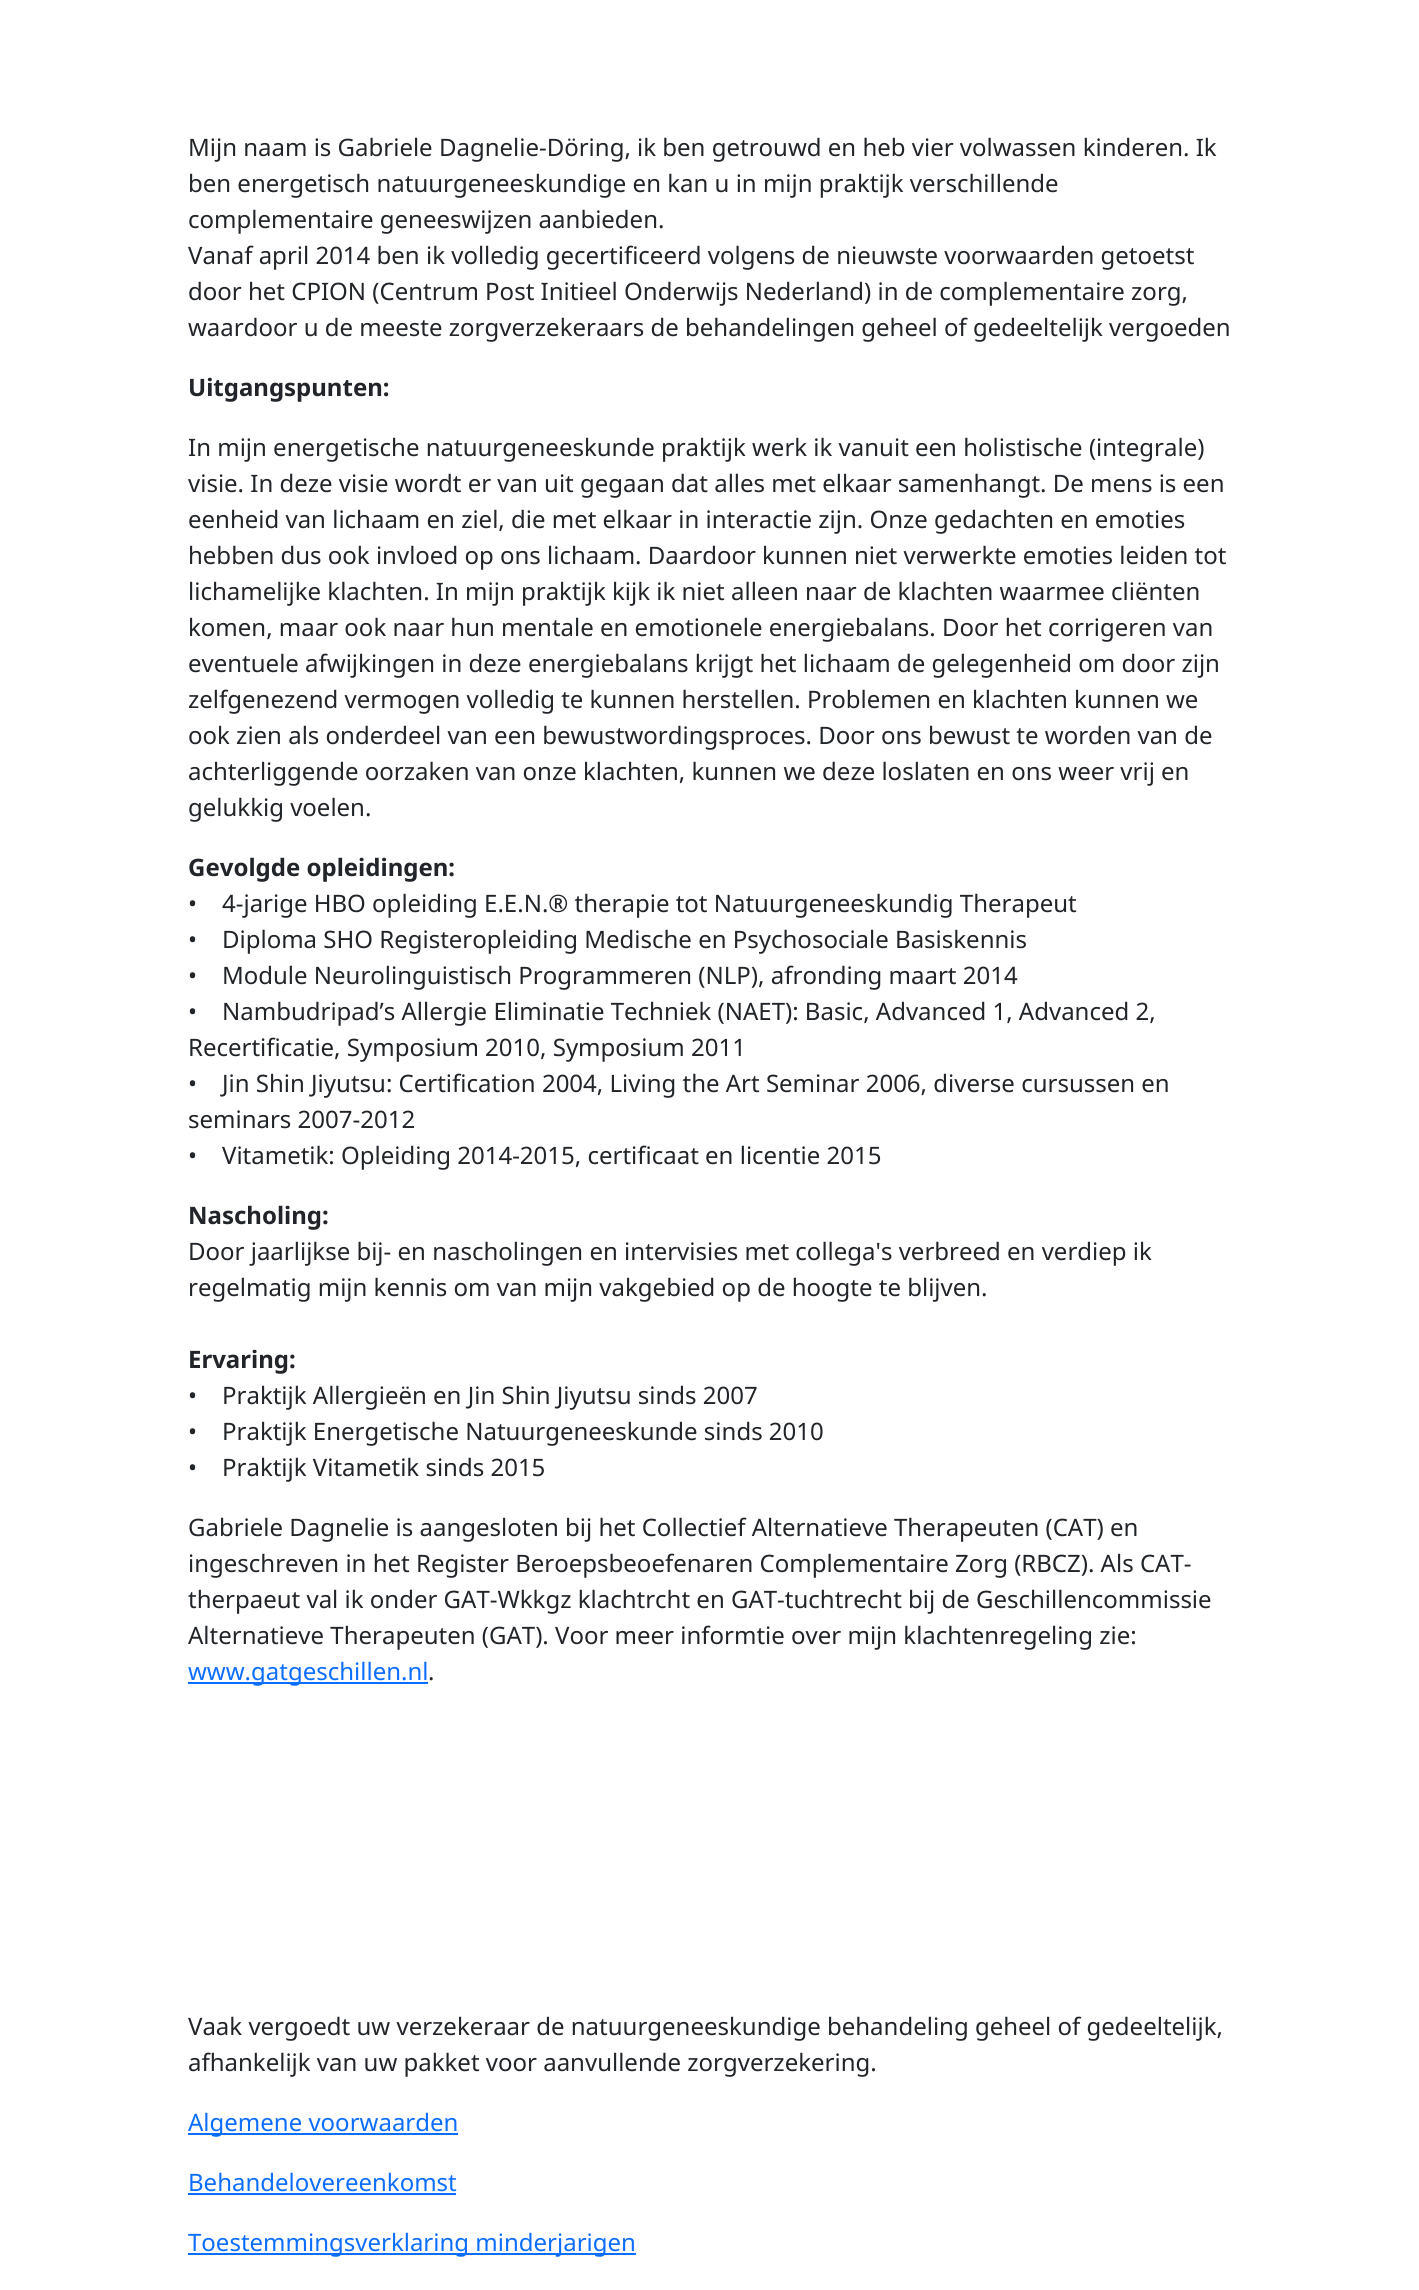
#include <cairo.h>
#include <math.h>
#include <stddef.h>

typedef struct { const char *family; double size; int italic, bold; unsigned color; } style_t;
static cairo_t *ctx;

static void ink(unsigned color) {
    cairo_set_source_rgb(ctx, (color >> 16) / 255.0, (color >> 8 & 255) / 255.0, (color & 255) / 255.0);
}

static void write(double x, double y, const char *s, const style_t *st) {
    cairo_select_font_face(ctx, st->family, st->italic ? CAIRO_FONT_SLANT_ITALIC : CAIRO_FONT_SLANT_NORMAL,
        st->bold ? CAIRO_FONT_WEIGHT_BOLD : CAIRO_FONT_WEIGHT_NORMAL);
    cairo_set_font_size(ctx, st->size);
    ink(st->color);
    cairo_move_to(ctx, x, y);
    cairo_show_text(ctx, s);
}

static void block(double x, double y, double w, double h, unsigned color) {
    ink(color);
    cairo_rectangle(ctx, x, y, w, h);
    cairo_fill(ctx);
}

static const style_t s1 = {"Noto Sans", 24, 0, 0, 0x212529};
static const style_t s2 = {"Noto Sans", 24, 0, 1, 0x212529};
static const style_t s3 = {"Noto Sans", 24, 0, 0, 0x0d6efd};

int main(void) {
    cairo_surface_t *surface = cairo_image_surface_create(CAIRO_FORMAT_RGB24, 1419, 2290);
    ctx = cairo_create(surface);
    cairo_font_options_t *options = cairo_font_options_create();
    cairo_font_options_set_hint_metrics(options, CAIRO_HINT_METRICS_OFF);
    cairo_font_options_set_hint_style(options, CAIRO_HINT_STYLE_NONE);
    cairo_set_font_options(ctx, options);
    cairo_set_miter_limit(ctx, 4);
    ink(0xffffff);
    cairo_paint(ctx);
    write(188, 156, "Mijn naam is Gabriele Dagnelie-Döring, ik ben getrouwd en heb vier volwassen kinderen. Ik", &s1);
    write(188, 192, "ben energetisch natuurgeneeskundige en kan u in mijn praktijk verschillende", &s1);
    write(188, 228, "complementaire geneeswijzen aanbieden.", &s1);
    write(188, 264, "Vanaf april 2014 ben ik volledig gecertificeerd volgens de nieuwste voorwaarden getoetst", &s1);
    write(188, 300, "door het CPION (Centrum Post Initieel Onderwijs Nederland) in de complementaire zorg,", &s1);
    write(188, 336, "waardoor u de meeste zorgverzekeraars de behandelingen geheel of gedeeltelijk vergoeden", &s1);
    write(188, 396, "Uitgangspunten:", &s2);
    write(188, 456, "In mijn energetische natuurgeneeskunde praktijk werk ik vanuit een holistische (integrale)", &s1);
    write(188, 492, "visie. In deze visie wordt er van uit gegaan dat alles met elkaar samenhangt. De mens is een", &s1);
    write(188, 528, "eenheid van lichaam en ziel, die met elkaar in interactie zijn. Onze gedachten en emoties", &s1);
    write(188, 564, "hebben dus ook invloed op ons lichaam. Daardoor kunnen niet verwerkte emoties leiden tot", &s1);
    write(188, 600, "lichamelijke klachten. In mijn praktijk kijk ik niet alleen naar de klachten waarmee cliënten", &s1);
    write(188, 636, "komen, maar ook naar hun mentale en emotionele energiebalans. Door het corrigeren van", &s1);
    write(188, 672, "eventuele afwijkingen in deze energiebalans krijgt het lichaam de gelegenheid om door zijn", &s1);
    write(188, 708, "zelfgenezend vermogen volledig te kunnen herstellen. Problemen en klachten kunnen we", &s1);
    write(188, 744, "ook zien als onderdeel van een bewustwordingsproces. Door ons bewust te worden van de", &s1);
    write(188, 780, "achterliggende oorzaken van onze klachten, kunnen we deze loslaten en ons weer vrij en", &s1);
    write(188, 816, "gelukkig voelen.", &s1);
    write(188, 876, "Gevolgde opleidingen:", &s2);
    write(188, 912, "•    4-jarige HBO opleiding E.E.N.® therapie tot Natuurgeneeskundig Therapeut", &s1);
    write(188, 948, "•    Diploma SHO Registeropleiding Medische en Psychosociale Basiskennis", &s1);
    write(188, 984, "•    Module Neurolinguistisch Programmeren (NLP), afronding maart 2014", &s1);
    write(188, 1020, "•    Nambudripad’s Allergie Eliminatie Techniek (NAET): Basic, Advanced 1, Advanced 2,", &s1);
    write(188, 1056, "Recertificatie, Symposium 2010, Symposium 2011", &s1);
    write(188, 1092, "•    Jin Shin Jiyutsu: Certification 2004, Living the Art Seminar 2006, diverse cursussen en", &s1);
    write(188, 1128, "seminars 2007-2012", &s1);
    write(188, 1164, "•    Vitametik: Opleiding 2014-2015, certificaat en licentie 2015", &s1);
    write(188, 1224, "Nascholing:", &s2);
    write(188, 1260, "Door jaarlijkse bij- en nascholingen en intervisies met collega's verbreed en verdiep ik", &s1);
    write(188, 1296, "regelmatig mijn kennis om van mijn vakgebied op de hoogte te blijven.", &s1);
    write(188, 1368, "Ervaring:", &s2);
    write(188, 1404, "•    Praktijk Allergieën en Jin Shin Jiyutsu sinds 2007", &s1);
    write(188, 1440, "•    Praktijk Energetische Natuurgeneeskunde sinds 2010", &s1);
    write(188, 1476, "•    Praktijk Vitametik sinds 2015", &s1);
    write(188, 1536, "Gabriele Dagnelie is aangesloten bij het Collectief Alternatieve Therapeuten (CAT) en", &s1);
    write(188, 1572, "ingeschreven in het Register Beroepsbeoefenaren Complementaire Zorg (RBCZ). Als CAT-", &s1);
    write(188, 1608, "therpaeut val ik onder GAT-Wkkgz klachtrcht en GAT-tuchtrecht bij de Geschillencommissie", &s1);
    write(188, 1644, "Alternatieve Therapeuten (GAT). Voor meer informtie over mijn klachtenregeling zie:", &s1);
    block(188, 1682, 240, 2, 0x0d6efd);
    write(188, 1680, "www.gatgeschillen.nl", &s3);
    write(428, 1680, ".", &s1);
    write(188, 2035, "Vaak vergoedt uw verzekeraar de natuurgeneeskundige behandeling geheel of gedeeltelijk,", &s1);
    write(188, 2071, "afhankelijk van uw pakket voor aanvullende zorgverzekering.", &s1);
    block(188, 2133, 270, 2, 0x0d6efd);
    write(188, 2131, "Algemene voorwaarden", &s3);
    write(188, 2191, "Behandelovereenkomst", &s3);
    block(188, 2193, 268, 2, 0x0d6efd);
    block(188, 2253, 448, 2, 0x0d6efd);
    write(188, 2251, "Toestemmingsverklaring minderjarigen", &s3);
    cairo_surface_write_to_png(surface, "screenshot.png");
    cairo_font_options_destroy(options);
    cairo_destroy(ctx);
    cairo_surface_destroy(surface);
    return 0;
}
